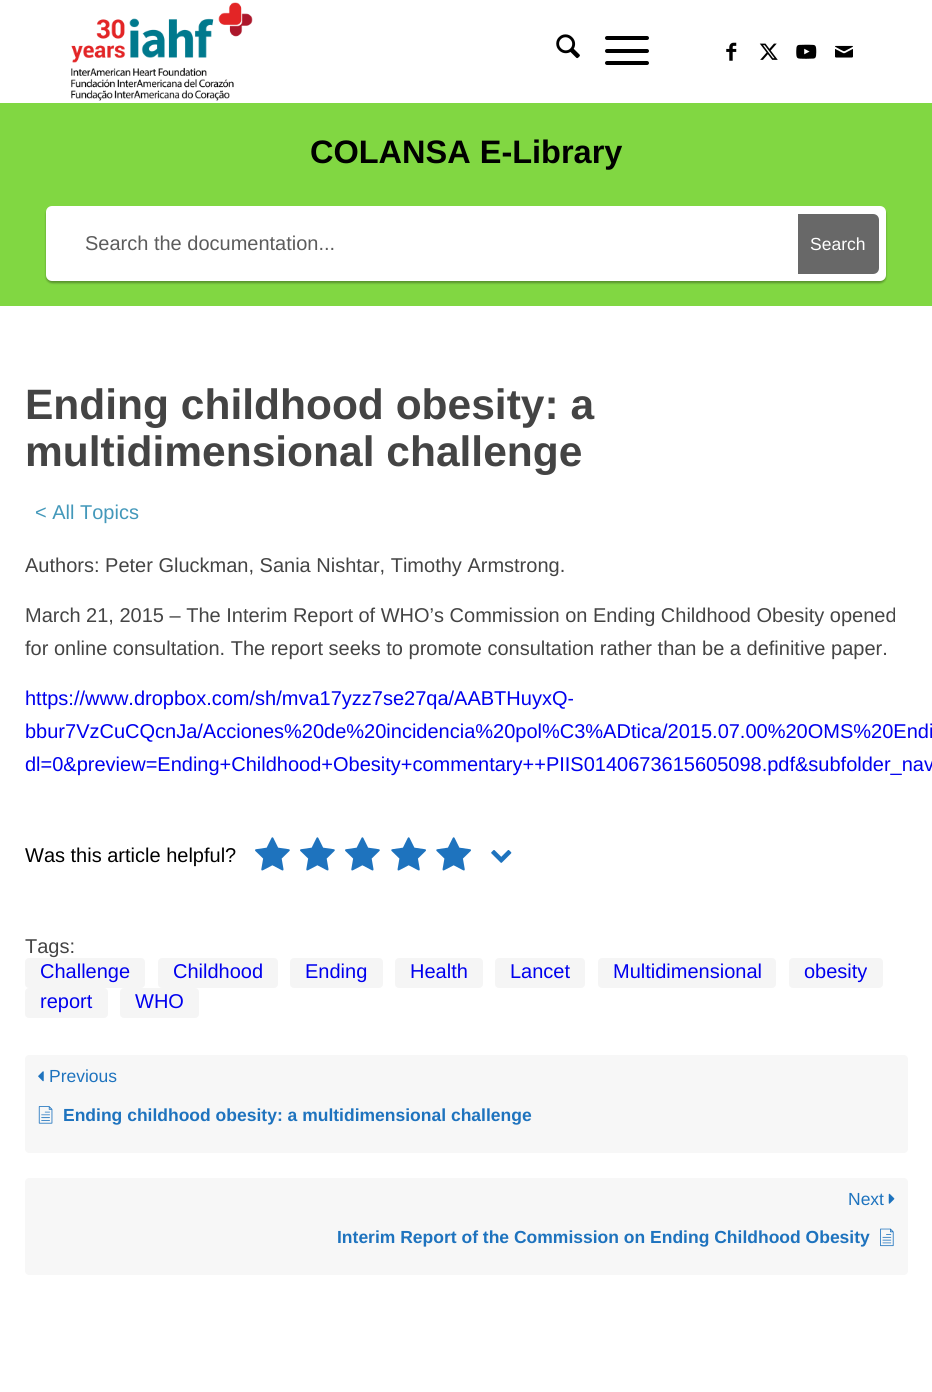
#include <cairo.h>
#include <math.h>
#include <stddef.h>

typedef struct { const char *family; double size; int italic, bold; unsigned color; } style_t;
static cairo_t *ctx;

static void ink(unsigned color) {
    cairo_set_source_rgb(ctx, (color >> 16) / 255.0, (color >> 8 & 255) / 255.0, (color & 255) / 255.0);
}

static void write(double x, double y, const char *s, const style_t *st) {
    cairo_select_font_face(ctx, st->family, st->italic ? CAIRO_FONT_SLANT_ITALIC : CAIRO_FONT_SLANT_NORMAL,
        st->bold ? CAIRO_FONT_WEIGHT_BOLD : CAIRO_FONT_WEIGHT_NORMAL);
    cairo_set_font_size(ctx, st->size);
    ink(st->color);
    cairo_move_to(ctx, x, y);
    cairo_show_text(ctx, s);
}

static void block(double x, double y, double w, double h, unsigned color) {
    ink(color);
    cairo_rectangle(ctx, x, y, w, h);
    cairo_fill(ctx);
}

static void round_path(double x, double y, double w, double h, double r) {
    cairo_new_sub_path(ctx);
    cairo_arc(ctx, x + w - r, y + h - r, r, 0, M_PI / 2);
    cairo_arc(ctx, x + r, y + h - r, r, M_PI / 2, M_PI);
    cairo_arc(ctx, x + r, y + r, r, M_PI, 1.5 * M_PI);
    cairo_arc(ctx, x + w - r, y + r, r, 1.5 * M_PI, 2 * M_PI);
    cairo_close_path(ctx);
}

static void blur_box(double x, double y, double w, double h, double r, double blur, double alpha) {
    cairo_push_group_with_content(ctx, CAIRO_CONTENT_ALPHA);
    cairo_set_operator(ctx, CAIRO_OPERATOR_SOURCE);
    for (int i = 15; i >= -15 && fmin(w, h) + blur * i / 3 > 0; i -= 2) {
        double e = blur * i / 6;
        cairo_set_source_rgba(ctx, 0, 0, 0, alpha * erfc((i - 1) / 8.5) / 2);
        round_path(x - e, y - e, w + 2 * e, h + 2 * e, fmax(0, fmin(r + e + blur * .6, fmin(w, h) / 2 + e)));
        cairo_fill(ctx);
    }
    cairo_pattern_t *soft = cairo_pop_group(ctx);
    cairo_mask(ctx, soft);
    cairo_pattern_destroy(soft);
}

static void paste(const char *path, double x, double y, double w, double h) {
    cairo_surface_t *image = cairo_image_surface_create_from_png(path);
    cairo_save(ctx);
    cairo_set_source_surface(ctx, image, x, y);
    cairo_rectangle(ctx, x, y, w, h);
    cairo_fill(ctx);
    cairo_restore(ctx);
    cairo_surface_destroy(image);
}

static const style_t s1 = {"Liberation Sans", 32.5, 0, 1, 0x000000};
static const style_t s2 = {"Liberation Sans", 20, 0, 0, 0x5c5c5c};
static const style_t s3 = {"Liberation Sans", 17.5, 0, 0, 0xffffff};
static const style_t s4 = {"Liberation Sans", 42.5, 0, 1, 0x444444};
static const style_t s5 = {"Liberation Sans", 20, 0, 0, 0x4398ba};
static const style_t s6 = {"Liberation Sans", 20, 0, 0, 0x444444};
static const style_t s7 = {"Liberation Sans", 20, 0, 0, 0x0000ee};
static const style_t s8 = {"Liberation Sans", 20, 0, 0, 0x000000};
static const style_t s9 = {"Liberation Sans", 17.5, 0, 0, 0x1e73be};
static const style_t s10 = {"Liberation Sans", 17.5, 0, 1, 0x1e73be};

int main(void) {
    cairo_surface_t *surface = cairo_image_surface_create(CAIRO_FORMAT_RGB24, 932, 1392);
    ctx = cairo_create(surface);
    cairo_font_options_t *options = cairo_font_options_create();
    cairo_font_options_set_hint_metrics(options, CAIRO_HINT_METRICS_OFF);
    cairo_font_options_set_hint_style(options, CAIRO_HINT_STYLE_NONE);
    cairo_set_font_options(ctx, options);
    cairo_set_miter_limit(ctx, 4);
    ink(0xffffff);
    cairo_paint(ctx);
    paste("pic1.png", 71, 2, 182, 99);
    paste("pic2.png", 556, 34, 24, 25);
    ink(0x000000);
    round_path(605, 49, 44, 4, 2);
    cairo_fill(ctx);
    round_path(605, 36, 44, 4, 2);
    cairo_fill(ctx);
    round_path(605, 61, 44, 4, 2);
    cairo_fill(ctx);
    paste("pic3.png", 726, 42, 11, 19);
    paste("pic4.png", 759, 43, 19, 17);
    paste("pic5.png", 796, 44, 21, 15);
    paste("pic6.png", 835, 45, 18, 13);
    block(0, 103, 932, 203, 0x81d742);
    write(310, 163, "COLANSA E-Library", &s1);
    ink(0x000000);
    blur_box(46, 208, 840, 75, 6, 1, 0.32);
    ink(0xffffff);
    round_path(46, 206, 840, 75, 6);
    cairo_fill(ctx);
    write(85, 250, "Search the documentation...", &s2);
    ink(0x686868);
    cairo_new_path(ctx);
    cairo_move_to(ctx, 798, 214);
    cairo_line_to(ctx, 873, 214);
    cairo_curve_to(ctx, 876.5, 214, 879, 216.5, 879, 220);
    cairo_line_to(ctx, 879, 268);
    cairo_curve_to(ctx, 879, 271.5, 876.5, 274, 873, 274);
    cairo_line_to(ctx, 798, 274);
    cairo_close_path(ctx);
    cairo_fill(ctx);
    write(810, 250, "Search", &s3);
    write(25, 419, "Ending childhood obesity: a", &s4);
    write(25, 466, "multidimensional challenge", &s4);
    write(35, 519, "< All Topics", &s5);
    write(25, 572, "Authors: Peter Gluckman, Sania Nishtar, Timothy Armstrong.", &s6);
    write(25, 622, "March 21, 2015 – The Interim Report of WHO’s Commission on Ending Childhood Obesity opened", &s6);
    write(25, 655, "for online consultation. The report seeks to promote consultation rather than be a definitive paper.", &s6);
    write(25, 705, "https://www.dropbox.com/sh/mva17yzz7se27qa/AABTHuyxQ-", &s7);
    write(25, 738, "bbur7VzCuCQcnJa/Acciones%20de%20incidencia%20pol%C3%ADtica/2015.07.00%20OMS%20Endi", &s7);
    write(25, 771, "dl=0&preview=Ending+Childhood+Obesity+commentary++PIIS0140673615605098.pdf&subfolder_nav", &s7);
    write(25, 862, "Was this article helpful?", &s8);
    paste("pic7.png", 255, 837, 35, 34);
    paste("pic7.png", 300, 837, 35, 34);
    paste("pic7.png", 345, 837, 35, 34);
    paste("pic8.png", 391, 837, 35, 34);
    paste("pic8.png", 436, 837, 35, 34);
    paste("pic9.png", 491, 850, 21, 13);
    write(25, 953, "Tags:", &s6);
    ink(0xf5f5f5);
    round_path(25, 958, 120, 30, 4);
    cairo_fill(ctx);
    write(40, 978, "Challenge", &s7);
    ink(0xf5f5f5);
    round_path(158, 958, 120, 30, 4);
    cairo_fill(ctx);
    write(173, 978, "Childhood", &s7);
    ink(0xf5f5f5);
    round_path(290, 958, 93, 30, 4);
    cairo_fill(ctx);
    write(305, 978, "Ending", &s7);
    ink(0xf5f5f5);
    round_path(395, 958, 88, 30, 4);
    cairo_fill(ctx);
    write(410, 978, "Health", &s7);
    ink(0xf5f5f5);
    round_path(495, 958, 90, 30, 4);
    cairo_fill(ctx);
    write(510, 978, "Lancet", &s7);
    ink(0xf5f5f5);
    round_path(598, 958, 178, 30, 4);
    cairo_fill(ctx);
    write(613, 978, "Multidimensional", &s7);
    ink(0xf5f5f5);
    round_path(789, 958, 94, 30, 4);
    cairo_fill(ctx);
    write(804, 978, "obesity", &s7);
    ink(0xf5f5f5);
    round_path(25, 988, 83, 30, 4);
    cairo_fill(ctx);
    write(40, 1008, "report", &s7);
    ink(0xf5f5f5);
    round_path(120, 988, 79, 30, 4);
    cairo_fill(ctx);
    write(135, 1008, "WHO", &s7);
    ink(0xf7f7f7);
    round_path(25, 1055, 883, 98, 4);
    cairo_fill(ctx);
    paste("pic10.png", 38, 1071, 6, 11);
    write(49, 1082, "Previous", &s9);
    paste("pic11.png", 38, 1106, 15, 18);
    write(63, 1121, "Ending childhood obesity: a multidimensional challenge", &s10);
    ink(0xf7f7f7);
    round_path(25, 1178, 883, 97, 4);
    cairo_fill(ctx);
    write(848, 1205, "Next", &s9);
    paste("pic12.png", 888, 1193, 7, 11);
    write(337, 1243, "Interim Report of the Commission on Ending Childhood Obesity", &s10);
    paste("pic13.png", 880, 1228, 14, 19);
    cairo_surface_write_to_png(surface, "screenshot.png");
    cairo_font_options_destroy(options);
    cairo_destroy(ctx);
    cairo_surface_destroy(surface);
    return 0;
}
